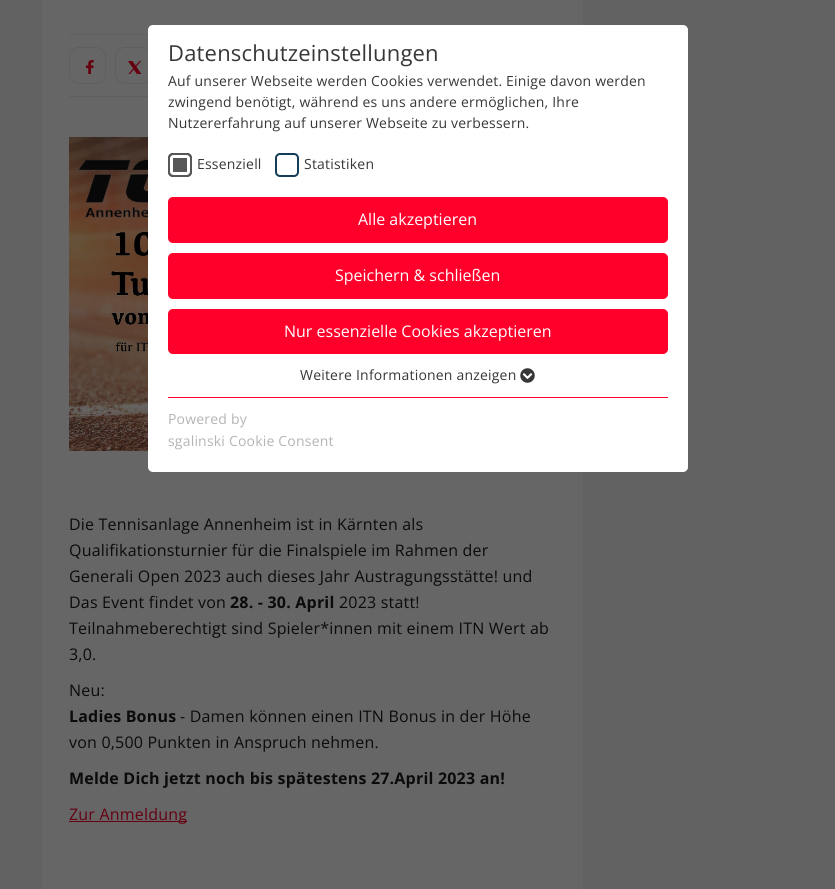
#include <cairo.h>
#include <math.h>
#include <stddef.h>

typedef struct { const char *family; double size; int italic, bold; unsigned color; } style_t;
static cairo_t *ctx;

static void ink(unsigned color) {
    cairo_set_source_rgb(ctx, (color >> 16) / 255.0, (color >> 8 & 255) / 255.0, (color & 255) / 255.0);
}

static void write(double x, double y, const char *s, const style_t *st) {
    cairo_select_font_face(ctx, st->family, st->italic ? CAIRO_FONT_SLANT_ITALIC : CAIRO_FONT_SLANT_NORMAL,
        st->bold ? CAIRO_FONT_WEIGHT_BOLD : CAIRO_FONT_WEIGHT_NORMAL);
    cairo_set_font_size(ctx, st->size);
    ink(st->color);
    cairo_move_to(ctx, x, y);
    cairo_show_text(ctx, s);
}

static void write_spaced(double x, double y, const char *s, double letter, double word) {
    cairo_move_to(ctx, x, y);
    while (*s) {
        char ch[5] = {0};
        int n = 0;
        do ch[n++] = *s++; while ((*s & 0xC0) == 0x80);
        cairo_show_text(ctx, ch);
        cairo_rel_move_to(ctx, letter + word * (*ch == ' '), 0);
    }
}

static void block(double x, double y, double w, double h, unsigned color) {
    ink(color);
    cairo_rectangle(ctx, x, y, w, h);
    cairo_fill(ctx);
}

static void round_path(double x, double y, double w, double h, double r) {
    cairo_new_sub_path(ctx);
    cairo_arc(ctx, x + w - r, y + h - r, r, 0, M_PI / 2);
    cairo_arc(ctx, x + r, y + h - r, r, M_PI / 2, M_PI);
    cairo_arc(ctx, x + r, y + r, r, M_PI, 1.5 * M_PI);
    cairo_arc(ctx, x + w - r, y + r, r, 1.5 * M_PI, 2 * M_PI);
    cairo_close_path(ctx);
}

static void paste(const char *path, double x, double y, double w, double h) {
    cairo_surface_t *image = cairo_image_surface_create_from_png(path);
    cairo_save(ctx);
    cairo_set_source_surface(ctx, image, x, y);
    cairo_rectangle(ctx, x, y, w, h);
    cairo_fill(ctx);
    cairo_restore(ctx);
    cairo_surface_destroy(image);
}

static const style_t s1 = {"Open Sans", 16, 0, 0, 0xffffff};

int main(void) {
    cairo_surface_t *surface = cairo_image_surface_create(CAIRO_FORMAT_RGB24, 835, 889);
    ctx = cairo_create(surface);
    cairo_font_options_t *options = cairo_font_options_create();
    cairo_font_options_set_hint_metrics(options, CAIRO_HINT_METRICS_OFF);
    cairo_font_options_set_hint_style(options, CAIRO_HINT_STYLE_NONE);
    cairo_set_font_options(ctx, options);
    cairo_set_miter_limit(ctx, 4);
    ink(0x626262);
    cairo_paint(ctx);
    block(42, 0, 541, 889, 0x666666);
    round_path(115.5, 47.5, 36, 36, 9.5);
    ink(0x5f5f5f);
    cairo_set_line_width(ctx, 1);
    cairo_stroke(ctx);
    ink(0xffffff);
    round_path(148, 25, 540, 447, 5);
    cairo_fill(ctx);
    cairo_select_font_face(ctx, "Open Sans", CAIRO_FONT_SLANT_NORMAL, CAIRO_FONT_WEIGHT_NORMAL);
    cairo_set_font_size(ctx, 22);
    ink(0x373737);
    write_spaced(168, 61, "Datenschutzeinstellungen", 0.2, 0);
    cairo_set_font_size(ctx, 14);
    write_spaced(168, 86, "Auf unserer Webseite werden Cookies verwendet. Einige davon werden", 0.2, 0);
    write_spaced(168, 107, "zwingend benötigt, während es uns andere ermöglichen, Ihre", 0.2, 0);
    write_spaced(168, 128, "Nutzererfahrung auf unserer Webseite zu verbessern.", 0.2, 0);
    ink(0x575757);
    round_path(168, 153, 24, 24, 5);
    cairo_fill(ctx);
    round_path(171.5, 156.5, 17, 17, 1.5);
    ink(0xffffff);
    cairo_set_line_width(ctx, 3);
    cairo_stroke(ctx);
    round_path(169, 154, 22, 22, 4);
    ink(0x575757);
    cairo_set_line_width(ctx, 2);
    cairo_stroke(ctx);
    ink(0x373737);
    write_spaced(197, 169, "Essenziell", 0.2, 0);
    round_path(276, 154, 22, 22, 4);
    ink(0x143d59);
    cairo_stroke(ctx);
    ink(0x373737);
    write_spaced(304, 169, "Statistiken", 0.2, 0);
    ink(0xff002b);
    round_path(168, 197, 500, 46, 5);
    cairo_fill(ctx);
    write(358, 225, "Alle akzeptieren", &s1);
    ink(0xff002b);
    round_path(168, 253, 500, 46, 5);
    cairo_fill(ctx);
    write(335, 281, "Speichern & schließen", &s1);
    ink(0xff002b);
    round_path(168, 309, 500, 45, 5);
    cairo_fill(ctx);
    write(284, 337, "Nur essenzielle Cookies akzeptieren", &s1);
    cairo_set_font_size(ctx, 14);
    ink(0x373737);
    write_spaced(300, 380, "Weitere Informationen anzeigen", 0.2, 0);
    paste("pic1.png", 520, 368, 15, 15);
    block(168, 397, 500, 1, 0xff002b);
    ink(0xb4b4b4);
    write_spaced(168, 424, "Powered by", 0.2, 0);
    write_spaced(168, 446, "sgalinski Cookie Consent", 0.2, 0);
    block(69, 34, 79, 1, 0x5f5f5f);
    block(69, 96, 79, 1, 0x5f5f5f);
    round_path(69.5, 47.5, 36, 36, 9.5);
    cairo_set_line_width(ctx, 1);
    cairo_stroke(ctx);
    paste("pic2.png", 86, 60, 8, 14);
    paste("pic3.png", 128, 61, 13, 13);
    paste("pic4.png", 69, 137, 79, 314);
    cairo_set_font_size(ctx, 16);
    ink(0x0b0b0b);
    write_spaced(69, 530, "Die Tennisanlage Annenheim ist in Kärnten als", 0.2, 0);
    write_spaced(69, 556, "Qualifikationsturnier für die Finalspiele im Rahmen der", 0.2, 0);
    write_spaced(69, 582, "Generali Open 2023 auch dieses Jahr Austragungsstätte! und", 0.2, 0);
    write_spaced(69, 608, "Das Event findet von", 0.2, 0);
    cairo_select_font_face(ctx, "Open Sans", CAIRO_FONT_SLANT_NORMAL, CAIRO_FONT_WEIGHT_BOLD);
    write_spaced(230, 608, "28. - 30. April", 0.2, 0);
    cairo_select_font_face(ctx, "Open Sans", CAIRO_FONT_SLANT_NORMAL, CAIRO_FONT_WEIGHT_NORMAL);
    write_spaced(339, 608, "2023 statt!", 0.2, 0);
    write_spaced(69, 634, "Teilnahmeberechtigt sind Spieler*innen mit einem ITN Wert ab", 0.2, 0);
    write_spaced(69, 660, "3,0.", 0.2, 0);
    write_spaced(69, 696, "Neu:", 0.2, 0);
    cairo_select_font_face(ctx, "Open Sans", CAIRO_FONT_SLANT_NORMAL, CAIRO_FONT_WEIGHT_BOLD);
    write_spaced(69, 722, "Ladies Bonus", 0.2, 0);
    cairo_select_font_face(ctx, "Open Sans", CAIRO_FONT_SLANT_NORMAL, CAIRO_FONT_WEIGHT_NORMAL);
    write_spaced(180, 722, "- Damen können einen ITN Bonus in der Höhe", 0.2, 0);
    write_spaced(69, 748, "von 0,500 Punkten in Anspruch nehmen.", 0.2, 0);
    cairo_select_font_face(ctx, "Open Sans", CAIRO_FONT_SLANT_NORMAL, CAIRO_FONT_WEIGHT_BOLD);
    write_spaced(69, 784, "Melde Dich jetzt noch bis spätestens 27.April 2023 an!", 0.2, 0);
    block(69, 821, 118, 1, 0x660011);
    cairo_select_font_face(ctx, "Open Sans", CAIRO_FONT_SLANT_NORMAL, CAIRO_FONT_WEIGHT_NORMAL);
    write_spaced(69, 820, "Zur Anmeldung", 0.2, 0);
    cairo_surface_write_to_png(surface, "screenshot.png");
    cairo_font_options_destroy(options);
    cairo_destroy(ctx);
    cairo_surface_destroy(surface);
    return 0;
}
